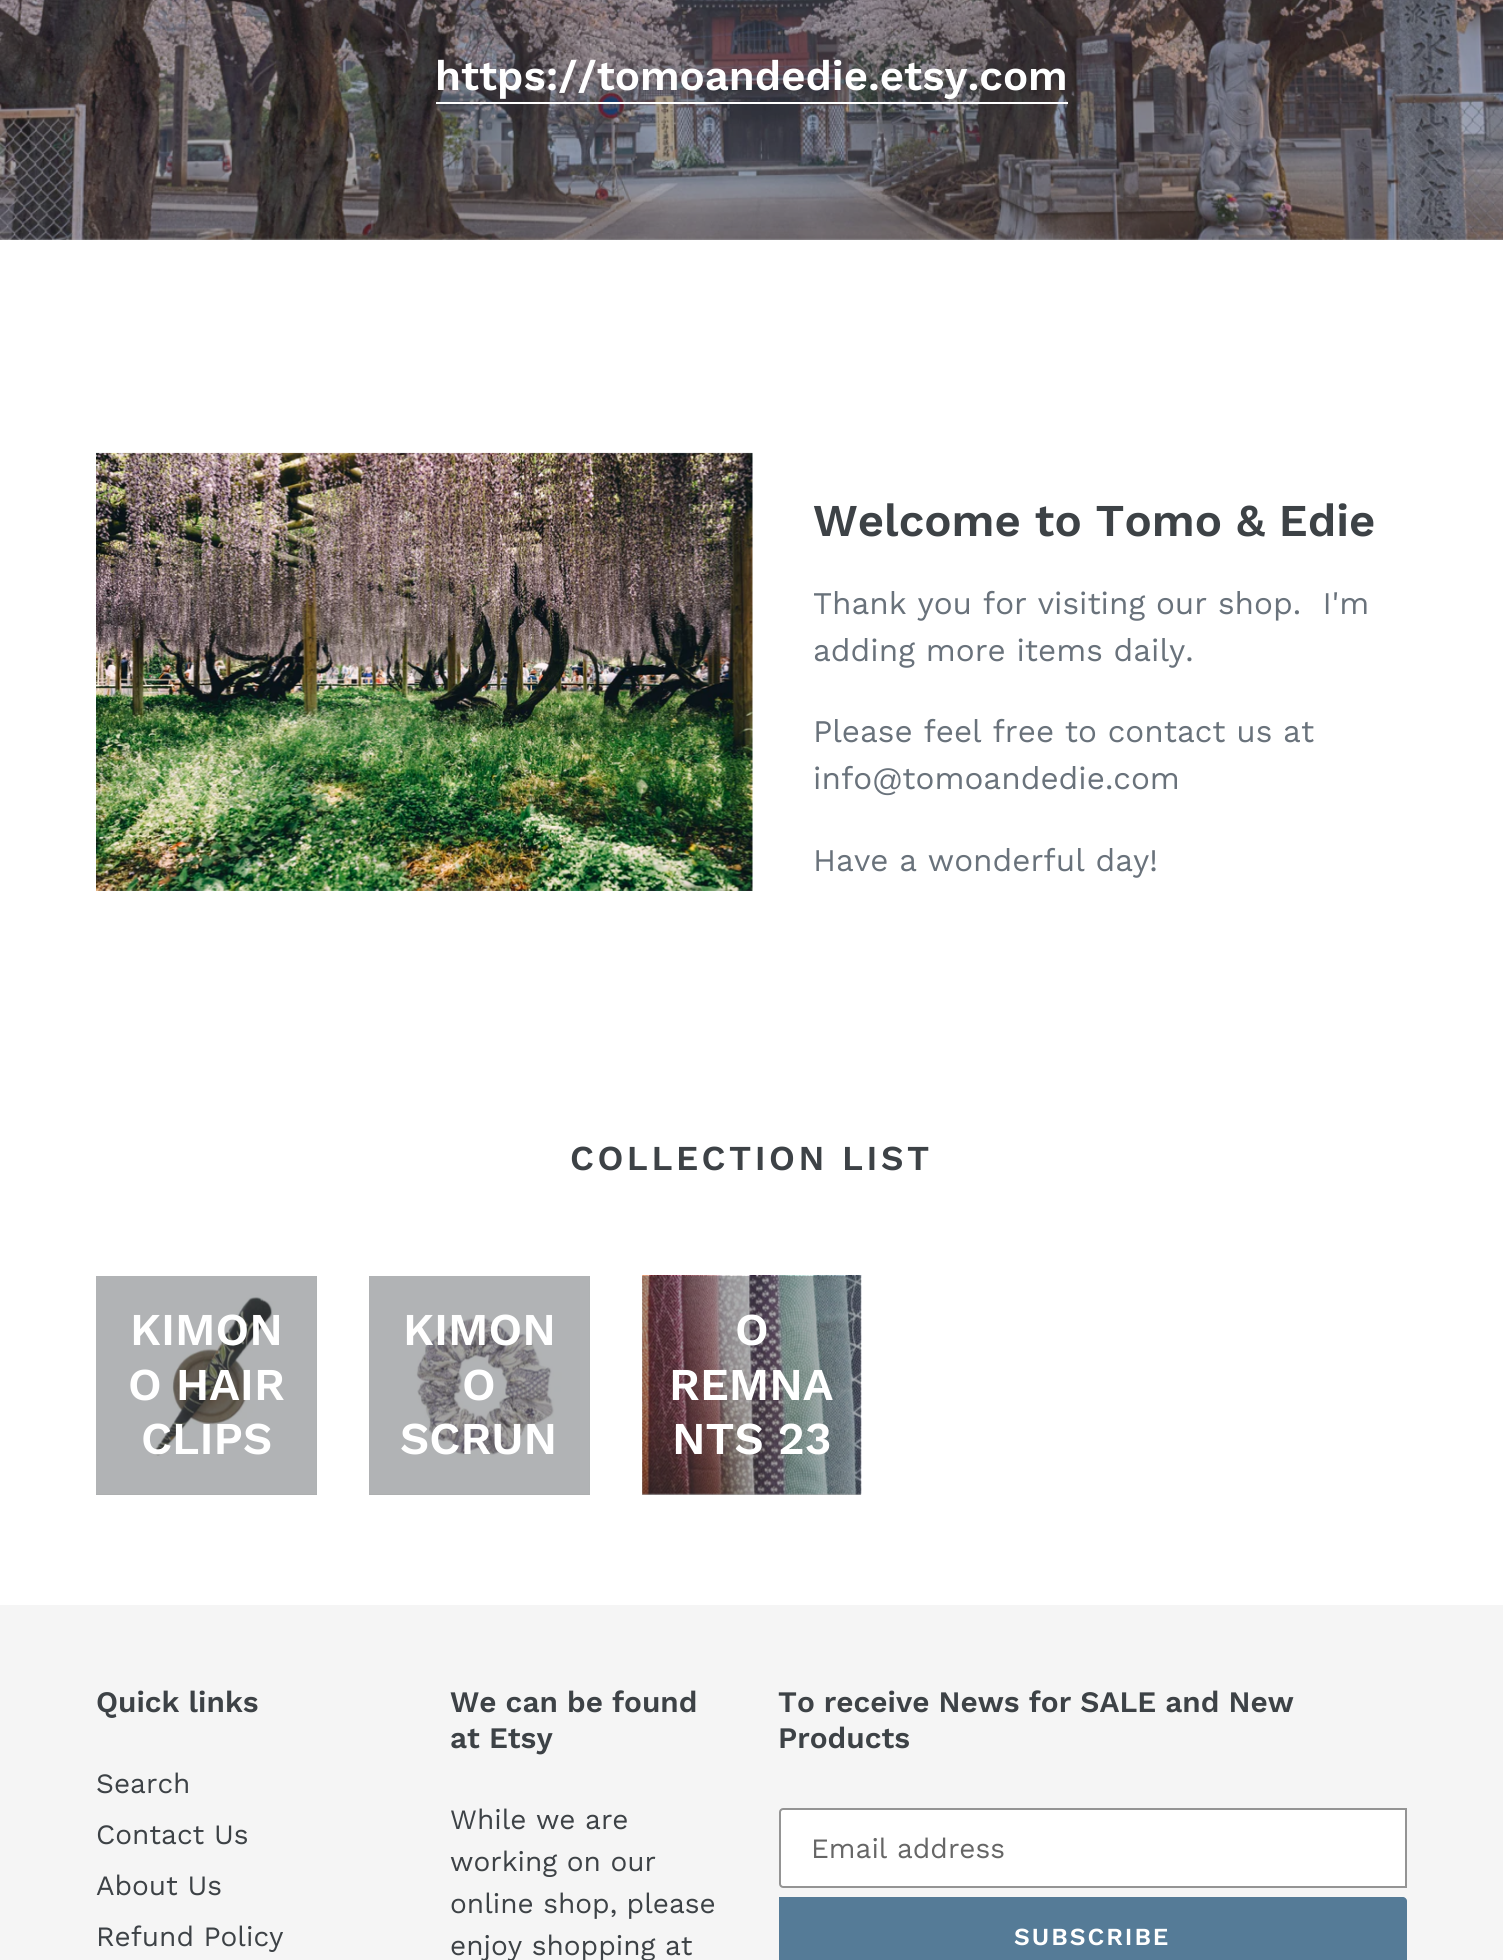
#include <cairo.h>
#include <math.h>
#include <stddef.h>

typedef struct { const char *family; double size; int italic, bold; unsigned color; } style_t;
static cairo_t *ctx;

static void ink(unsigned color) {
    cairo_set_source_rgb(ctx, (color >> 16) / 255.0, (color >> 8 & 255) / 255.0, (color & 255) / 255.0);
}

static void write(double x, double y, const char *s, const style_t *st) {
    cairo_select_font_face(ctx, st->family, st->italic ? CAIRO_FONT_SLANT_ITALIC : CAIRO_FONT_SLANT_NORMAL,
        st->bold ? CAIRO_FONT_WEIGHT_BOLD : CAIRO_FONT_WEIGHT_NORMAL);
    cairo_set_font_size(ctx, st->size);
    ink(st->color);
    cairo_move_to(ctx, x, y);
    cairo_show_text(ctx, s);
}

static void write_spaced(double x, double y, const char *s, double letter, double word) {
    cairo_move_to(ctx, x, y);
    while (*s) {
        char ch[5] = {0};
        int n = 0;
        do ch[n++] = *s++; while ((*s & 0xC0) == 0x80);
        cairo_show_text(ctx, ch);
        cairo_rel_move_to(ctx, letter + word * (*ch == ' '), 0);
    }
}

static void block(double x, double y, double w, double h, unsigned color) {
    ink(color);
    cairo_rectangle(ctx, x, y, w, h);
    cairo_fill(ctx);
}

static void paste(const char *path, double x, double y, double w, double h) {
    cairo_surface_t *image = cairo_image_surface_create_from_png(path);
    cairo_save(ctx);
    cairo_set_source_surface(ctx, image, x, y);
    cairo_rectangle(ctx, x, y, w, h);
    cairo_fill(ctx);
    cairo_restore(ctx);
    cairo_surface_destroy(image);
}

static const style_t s1 = {"Work Sans SemiBold", 42, 0, 0, 0xffffff};
static const style_t s2 = {"Work Sans SemiBold", 45.5, 0, 0, 0x3d4246};
static const style_t s3 = {"Work Sans", 31.5, 0, 0, 0x69727b};
static const style_t s4 = {"Work Sans SemiBold", 45.5, 0, 0, 0xffffff};
static const style_t s5 = {"Work Sans SemiBold", 29.75, 0, 0, 0x3d4246};
static const style_t s6 = {"Work Sans", 28, 0, 0, 0x3d4246};
static const style_t s7 = {"Work Sans", 28, 0, 0, 0x666666};

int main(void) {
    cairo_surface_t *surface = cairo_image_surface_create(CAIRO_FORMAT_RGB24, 1503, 1960);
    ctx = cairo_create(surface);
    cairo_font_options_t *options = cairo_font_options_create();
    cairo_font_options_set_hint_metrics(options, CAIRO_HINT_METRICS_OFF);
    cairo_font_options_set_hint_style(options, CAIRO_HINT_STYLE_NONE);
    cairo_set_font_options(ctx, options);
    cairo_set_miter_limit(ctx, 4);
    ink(0xffffff);
    cairo_paint(ctx);
    block(0, 238, 1503, 2, 0xadafb0);
    paste("pic1.png", 0, 0, 1503, 240);
    write(435, 90, "https://tomoandedie.etsy.com", &s1);
    block(436, 102, 632, 2, 0xffffff);
    paste("pic2.png", 96, 452, 657, 439);
    write(813, 536, "Welcome to Tomo & Edie", &s2);
    write(813, 614, "Thank you for visiting our shop.  I'm", &s3);
    write(813, 661, "adding more items daily.", &s3);
    write(813, 742, "Please feel free to contact us at", &s3);
    write(813, 789, "info@tomoandedie.com", &s3);
    write(813, 871, "Have a wonderful day!", &s3);
    cairo_select_font_face(ctx, "Work Sans SemiBold", CAIRO_FONT_SLANT_NORMAL, CAIRO_FONT_WEIGHT_NORMAL);
    cairo_set_font_size(ctx, 35);
    ink(0x3d4246);
    write_spaced(570, 1170, "COLLECTION LIST", 3.5, 0);
    block(96, 1276, 221, 219, 0xadafb0);
    paste("pic3.png", 96, 1276, 221, 218);
    write(130, 1345, "KIMON", &s4);
    write(128, 1400, "O HAIR", &s4);
    write(141, 1454, "CLIPS", &s4);
    block(369, 1276, 221, 219, 0xadafb0);
    paste("pic4.png", 369, 1276, 221, 218);
    write(403, 1345, "KIMON", &s4);
    write(462, 1400, "O", &s4);
    write(400, 1454, "SCRUN", &s4);
    block(642, 1276, 219, 219, 0xadafb0);
    paste("pic5.png", 642, 1275, 220, 220);
    write(735, 1345, "O", &s4);
    write(669, 1400, "REMNA", &s4);
    write(672, 1454, "NTS 23", &s4);
    block(0, 1605, 1503, 355, 0xf5f5f5);
    write(96, 1712, "Quick links", &s5);
    write(96, 1793, "Search", &s6);
    write(96, 1844, "Contact Us", &s6);
    write(96, 1895, "About Us", &s6);
    write(96, 1946, "Refund Policy", &s6);
    write(450, 1712, "We can be found", &s5);
    write(450, 1748, "at Etsy", &s5);
    write(450, 1829, "While we are", &s6);
    write(450, 1871, "working on our", &s6);
    write(450, 1913, "online shop, please", &s6);
    write(450, 1955, "enjoy shopping at", &s6);
    write(778, 1712, "To receive News for SALE and New", &s5);
    write(778, 1748, "Products", &s5);
    ink(0xffffff);
    cairo_new_path(ctx);
    cairo_move_to(ctx, 783, 1809);
    cairo_line_to(ctx, 1406, 1809);
    cairo_line_to(ctx, 1406, 1887);
    cairo_line_to(ctx, 783, 1887);
    cairo_curve_to(ctx, 781.5, 1887, 780, 1885.5, 780, 1884);
    cairo_line_to(ctx, 780, 1812);
    cairo_curve_to(ctx, 780, 1810.5, 781.5, 1809, 783, 1809);
    cairo_close_path(ctx);
    cairo_fill_preserve(ctx);
    ink(0x949494);
    cairo_stroke(ctx);
    write(811, 1858, "Email address", &s7);
    ink(0x557b97);
    cairo_new_path(ctx);
    cairo_move_to(ctx, 779, 1897);
    cairo_line_to(ctx, 1403, 1897);
    cairo_curve_to(ctx, 1405, 1897, 1407, 1899, 1407, 1901);
    cairo_line_to(ctx, 1407, 1960);
    cairo_curve_to(ctx, 1407, 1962, 1405, 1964, 1403, 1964);
    cairo_line_to(ctx, 779, 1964);
    cairo_close_path(ctx);
    cairo_fill(ctx);
    cairo_select_font_face(ctx, "Work Sans SemiBold", CAIRO_FONT_SLANT_NORMAL, CAIRO_FONT_WEIGHT_NORMAL);
    cairo_set_font_size(ctx, 24.5);
    ink(0xffffff);
    write_spaced(1014, 1945, "SUBSCRIBE", 2, 0);
    cairo_surface_write_to_png(surface, "screenshot.png");
    cairo_font_options_destroy(options);
    cairo_destroy(ctx);
    cairo_surface_destroy(surface);
    return 0;
}
